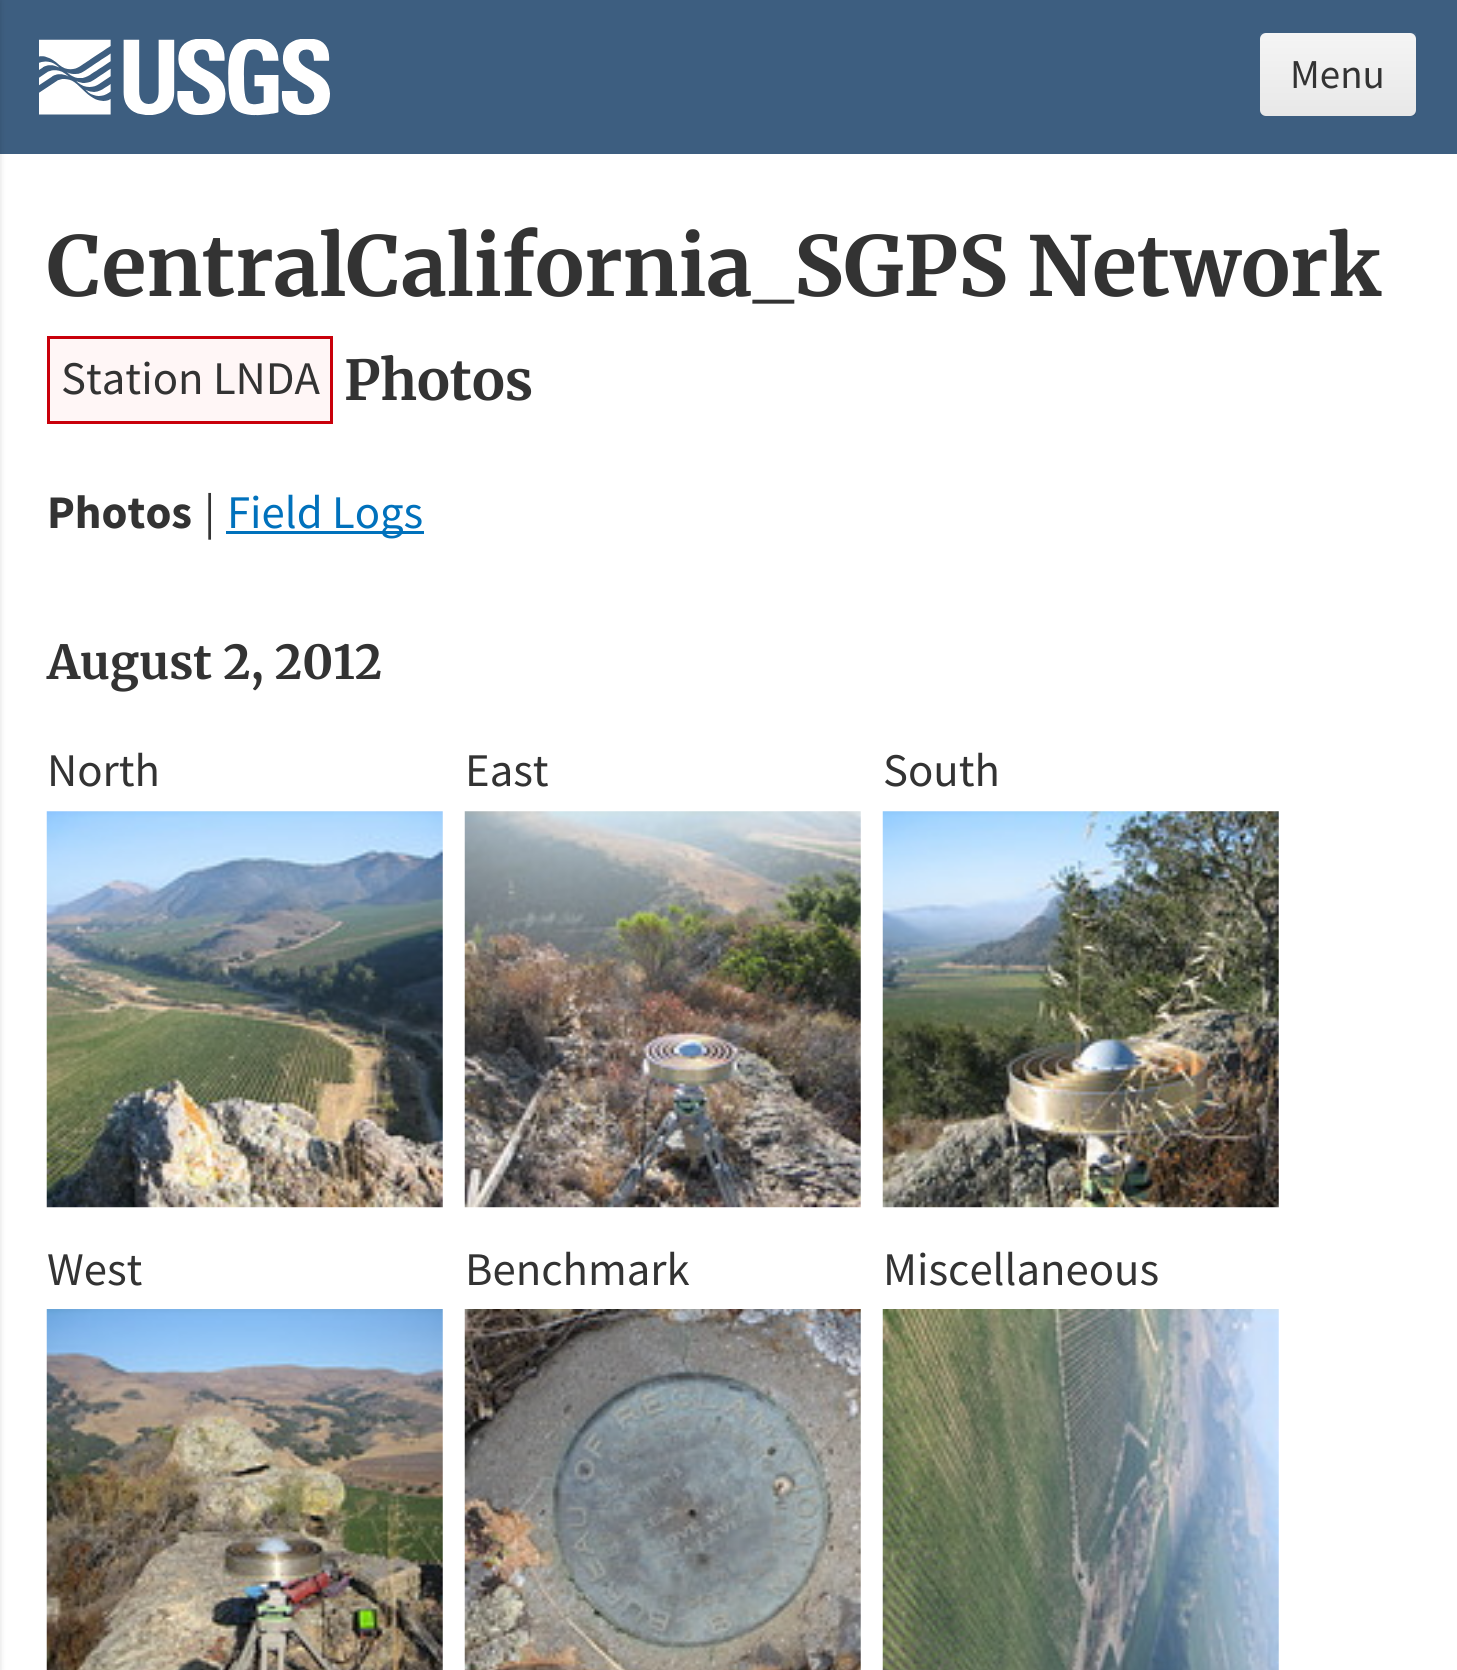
#include <cairo.h>
#include <math.h>
#include <stddef.h>

typedef struct { const char *family; double size; int italic, bold; unsigned color; } style_t;
static cairo_t *ctx;

static void ink(unsigned color) {
    cairo_set_source_rgb(ctx, (color >> 16) / 255.0, (color >> 8 & 255) / 255.0, (color & 255) / 255.0);
}

static void write(double x, double y, const char *s, const style_t *st) {
    cairo_select_font_face(ctx, st->family, st->italic ? CAIRO_FONT_SLANT_ITALIC : CAIRO_FONT_SLANT_NORMAL,
        st->bold ? CAIRO_FONT_WEIGHT_BOLD : CAIRO_FONT_WEIGHT_NORMAL);
    cairo_set_font_size(ctx, st->size);
    ink(st->color);
    cairo_move_to(ctx, x, y);
    cairo_show_text(ctx, s);
}

static void block(double x, double y, double w, double h, unsigned color) {
    ink(color);
    cairo_rectangle(ctx, x, y, w, h);
    cairo_fill(ctx);
}

static void round_path(double x, double y, double w, double h, double r) {
    cairo_new_sub_path(ctx);
    cairo_arc(ctx, x + w - r, y + h - r, r, 0, M_PI / 2);
    cairo_arc(ctx, x + r, y + h - r, r, M_PI / 2, M_PI);
    cairo_arc(ctx, x + r, y + r, r, M_PI, 1.5 * M_PI);
    cairo_arc(ctx, x + w - r, y + r, r, 1.5 * M_PI, 2 * M_PI);
    cairo_close_path(ctx);
}

static void blur_box(double x, double y, double w, double h, double r, double blur, double alpha) {
    cairo_push_group_with_content(ctx, CAIRO_CONTENT_ALPHA);
    cairo_set_operator(ctx, CAIRO_OPERATOR_SOURCE);
    for (int i = 15; i >= -15 && fmin(w, h) + blur * i / 3 > 0; i -= 2) {
        double e = blur * i / 6;
        cairo_set_source_rgba(ctx, 0, 0, 0, alpha * erfc((i - 1) / 8.5) / 2);
        round_path(x - e, y - e, w + 2 * e, h + 2 * e, fmax(0, fmin(r + e + blur * .6, fmin(w, h) / 2 + e)));
        cairo_fill(ctx);
    }
    cairo_pattern_t *soft = cairo_pop_group(ctx);
    cairo_mask(ctx, soft);
    cairo_pattern_destroy(soft);
}

static void paste(const char *path, double x, double y, double w, double h) {
    cairo_surface_t *image = cairo_image_surface_create_from_png(path);
    cairo_save(ctx);
    cairo_set_source_surface(ctx, image, x, y);
    cairo_rectangle(ctx, x, y, w, h);
    cairo_fill(ctx);
    cairo_restore(ctx);
    cairo_surface_destroy(image);
}

static const style_t s1 = {"Source Sans Pro", 41, 0, 0, 0x333333};
static const style_t s2 = {"Merriweather", 82.4, 0, 1, 0x333333};
static const style_t s3 = {"Source Sans Pro", 46.75, 0, 0, 0x333333};
static const style_t s4 = {"Merriweather", 55, 0, 1, 0x333333};
static const style_t s5 = {"Source Sans Pro", 46.75, 0, 1, 0x333333};
static const style_t s6 = {"Source Sans Pro", 46.75, 0, 0, 0x0071bc};
static const style_t s7 = {"Merriweather", 46.75, 0, 1, 0x333333};

int main(void) {
    cairo_surface_t *surface = cairo_image_surface_create(CAIRO_FORMAT_RGB24, 1457, 1670);
    ctx = cairo_create(surface);
    cairo_font_options_t *options = cairo_font_options_create();
    cairo_font_options_set_hint_metrics(options, CAIRO_HINT_METRICS_OFF);
    cairo_font_options_set_hint_style(options, CAIRO_HINT_STYLE_NONE);
    cairo_set_font_options(ctx, options);
    cairo_set_miter_limit(ctx, 4);
    cairo_pattern_t *gradient;
    ink(0xffffff);
    cairo_paint(ctx);
    block(0, 0, 1457, 154, 0x3d5e80);
    paste("pic1.png", 39, 39, 291, 77);
    ink(0x000000);
    blur_box(-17, 0, 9, 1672, 0, 5.5, 1);
    ink(0xf4f4f4);
    round_path(1260, 33, 156, 83, 6);
    cairo_fill(ctx);
    gradient = cairo_pattern_create_linear(1338, 33, 1338, 116);
    cairo_pattern_add_color_stop_rgba(gradient, 0, 1, 1, 1, 0.05);
    cairo_pattern_add_color_stop_rgba(gradient, 1, 0, 0, 0, 0.05);
    cairo_set_source(ctx, gradient);
    cairo_pattern_destroy(gradient);
    cairo_rectangle(ctx, 1260, 33, 156, 83);
    cairo_fill(ctx);
    write(1290, 88, "Menu", &s1);
    write(47, 296, "CentralCalifornia_SGPS Network", &s2);
    ink(0xfff6f6);
    cairo_rectangle(ctx, 48.5, 337.5, 283, 85);
    cairo_fill_preserve(ctx);
    ink(0xc9000a);
    cairo_set_line_width(ctx, 3);
    cairo_stroke(ctx);
    write(61, 394, "Station LNDA", &s3);
    write(344, 400, "Photos", &s4);
    write(47, 528, "Photos", &s5);
    write(204, 528, "|", &s3);
    block(226, 531, 198, 3, 0x0071bc);
    write(227, 528, "Field Logs", &s6);
    write(47, 679, "August 2, 2012", &s7);
    write(47, 786, "North", &s3);
    paste("pic2.png", 46, 811, 397, 397);
    write(465, 786, "East", &s3);
    paste("pic3.png", 464, 811, 397, 397);
    write(883, 786, "South", &s3);
    paste("pic4.png", 882, 811, 397, 397);
    write(47, 1285, "West", &s3);
    paste("pic5.png", 46, 1309, 397, 361);
    write(465, 1285, "Benchmark", &s3);
    paste("pic6.png", 464, 1309, 397, 361);
    write(883, 1285, "Miscellaneous", &s3);
    paste("pic7.png", 882, 1309, 397, 361);
    cairo_surface_write_to_png(surface, "screenshot.png");
    cairo_font_options_destroy(options);
    cairo_destroy(ctx);
    cairo_surface_destroy(surface);
    return 0;
}
